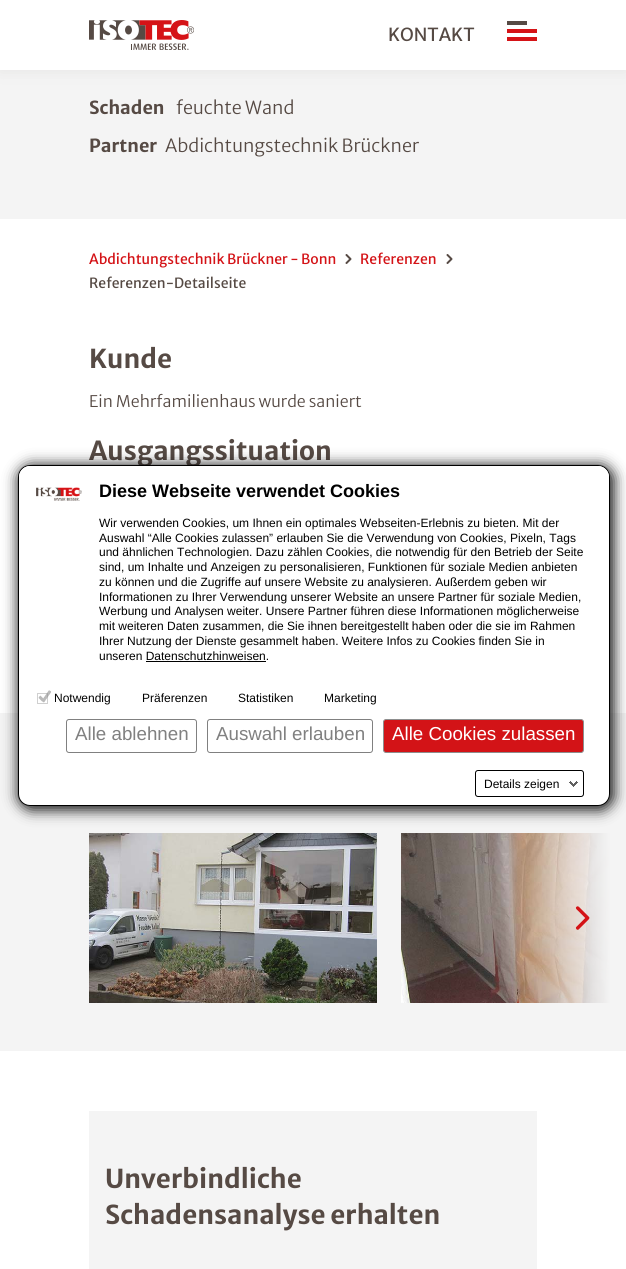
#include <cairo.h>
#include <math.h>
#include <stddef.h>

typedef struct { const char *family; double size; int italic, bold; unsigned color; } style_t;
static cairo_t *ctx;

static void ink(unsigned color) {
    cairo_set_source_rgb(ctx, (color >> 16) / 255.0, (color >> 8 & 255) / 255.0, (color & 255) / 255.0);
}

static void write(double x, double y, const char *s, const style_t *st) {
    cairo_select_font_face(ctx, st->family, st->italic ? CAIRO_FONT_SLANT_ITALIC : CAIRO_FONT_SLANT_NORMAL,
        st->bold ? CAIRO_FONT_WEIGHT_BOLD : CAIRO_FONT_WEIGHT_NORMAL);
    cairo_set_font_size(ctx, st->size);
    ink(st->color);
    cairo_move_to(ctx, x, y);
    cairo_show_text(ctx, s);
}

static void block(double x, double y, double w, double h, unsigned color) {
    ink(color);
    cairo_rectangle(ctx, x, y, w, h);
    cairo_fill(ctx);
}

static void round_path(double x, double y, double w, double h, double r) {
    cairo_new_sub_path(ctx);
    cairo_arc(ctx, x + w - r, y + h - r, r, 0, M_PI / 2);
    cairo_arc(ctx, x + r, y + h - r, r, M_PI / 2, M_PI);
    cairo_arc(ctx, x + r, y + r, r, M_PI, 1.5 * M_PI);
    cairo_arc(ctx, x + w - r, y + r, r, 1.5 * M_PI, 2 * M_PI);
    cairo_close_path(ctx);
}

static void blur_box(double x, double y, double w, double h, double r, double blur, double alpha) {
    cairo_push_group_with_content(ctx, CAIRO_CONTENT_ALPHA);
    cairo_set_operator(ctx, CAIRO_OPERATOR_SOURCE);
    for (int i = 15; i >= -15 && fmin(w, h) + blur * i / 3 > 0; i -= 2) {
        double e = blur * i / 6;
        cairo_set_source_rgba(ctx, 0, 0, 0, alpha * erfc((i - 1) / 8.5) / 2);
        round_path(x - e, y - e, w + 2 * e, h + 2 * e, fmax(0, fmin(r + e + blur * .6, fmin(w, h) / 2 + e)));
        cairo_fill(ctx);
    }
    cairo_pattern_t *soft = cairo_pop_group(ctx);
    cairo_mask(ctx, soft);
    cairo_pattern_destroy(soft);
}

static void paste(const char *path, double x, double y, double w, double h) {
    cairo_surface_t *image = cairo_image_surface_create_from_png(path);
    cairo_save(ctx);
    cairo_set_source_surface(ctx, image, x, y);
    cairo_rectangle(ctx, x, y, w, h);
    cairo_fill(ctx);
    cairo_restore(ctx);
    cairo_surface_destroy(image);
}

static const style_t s1 = {"Merriweather Sans", 18, 0, 0, 0x564a44};
static const style_t s2 = {"Merriweather Sans", 18, 0, 1, 0x564a44};
static const style_t s3 = {"Merriweather Sans Light", 18, 0, 0, 0x564a44};
static const style_t s4 = {"Merriweather Sans", 14, 0, 0, 0xd41317};
static const style_t s5 = {"Merriweather Sans", 14, 0, 0, 0x564a44};
static const style_t s6 = {"Merriweather Sans", 26, 0, 1, 0x564a44};
static const style_t s7 = {"Merriweather Sans Light", 16, 0, 0, 0x564a44};
static const style_t s8 = {"Liberation Sans", 18, 0, 1, 0x000000};
static const style_t s9 = {"Liberation Sans", 12, 0, 0, 0x000000};
static const style_t s10 = {"Liberation Sans", 18.75, 0, 0, 0x808080};
static const style_t s11 = {"Liberation Sans", 18.75, 0, 0, 0xffffff};

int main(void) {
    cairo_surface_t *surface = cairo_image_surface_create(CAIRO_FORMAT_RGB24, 626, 1269);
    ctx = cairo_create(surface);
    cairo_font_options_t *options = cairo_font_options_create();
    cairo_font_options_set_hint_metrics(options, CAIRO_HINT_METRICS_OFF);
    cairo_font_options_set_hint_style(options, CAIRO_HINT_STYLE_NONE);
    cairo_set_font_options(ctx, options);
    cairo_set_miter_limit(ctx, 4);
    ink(0xffffff);
    cairo_paint(ctx);
    block(0, 70, 626, 149, 0xf4f4f4);
    ink(0x564a44);
    blur_box(0, 0, 626, 70, 0, 8, 0.1);
    block(0, 0, 626, 70, 0xffffff);
    paste("pic1.png", 89, 20, 105, 30);
    write(388, 41, "KONTAKT", &s1);
    block(507, 21, 20, 4, 0x564a44);
    block(507, 37, 30, 4, 0xd51317);
    block(507, 29, 30, 4, 0xd51317);
    write(89, 114, "Schaden", &s2);
    write(176, 114, "feuchte Wand", &s3);
    write(89, 152, "Partner", &s2);
    write(165, 152, "Abdichtungstechnik Brückner", &s3);
    write(89, 264, "Abdichtungstechnik Brückner - Bonn", &s4);
    cairo_new_path(ctx);
    cairo_move_to(ctx, 346.5, 263);
    cairo_line_to(ctx, 350.5, 259);
    cairo_line_to(ctx, 346.5, 255);
    ink(0x564a44);
    cairo_set_line_cap(ctx, CAIRO_LINE_CAP_ROUND);
    cairo_set_line_join(ctx, CAIRO_LINE_JOIN_ROUND);
    cairo_stroke(ctx);
    write(360, 264, "Referenzen", &s4);
    cairo_new_path(ctx);
    cairo_move_to(ctx, 447.5, 263);
    cairo_line_to(ctx, 451.5, 259);
    cairo_line_to(ctx, 447.5, 255);
    ink(0x564a44);
    cairo_stroke(ctx);
    write(89, 288, "Referenzen-Detailseite", &s5);
    write(89, 368, "Kunde", &s6);
    write(89, 407, "Ein Mehrfamilienhaus wurde saniert", &s7);
    write(89, 460, "Ausgangssituation", &s6);
    block(0, 713, 626, 338, 0xf4f4f4);
    paste("pic2.png", 89, 833, 288, 170);
    paste("pic3.png", 401, 833, 209, 170);
    paste("pic4.png", 575, 906, 15, 24);
    block(89, 1111, 448, 158, 0xf4f4f4);
    write(105, 1188, "Unverbindliche", &s6);
    write(105, 1224, "Schadensanalyse erhalten", &s6);
    ink(0x121212);
    blur_box(18, 465, 596, 345, 14, 7, 1);
    ink(0xffffff);
    round_path(18.5, 465.5, 591, 340, 11.5);
    cairo_fill_preserve(ctx);
    ink(0x000000);
    cairo_set_line_width(ctx, 1);
    cairo_set_line_cap(ctx, CAIRO_LINE_CAP_BUTT);
    cairo_set_line_join(ctx, CAIRO_LINE_JOIN_MITER);
    cairo_stroke(ctx);
    ink(0xffffff);
    cairo_new_path(ctx);
    cairo_move_to(ctx, 30, 466);
    cairo_line_to(ctx, 598, 466);
    cairo_curve_to(ctx, 604, 466, 609, 471, 609, 477);
    cairo_line_to(ctx, 609, 770);
    cairo_line_to(ctx, 19, 770);
    cairo_line_to(ctx, 19, 477);
    cairo_curve_to(ctx, 19, 471, 24, 466, 30, 466);
    cairo_close_path(ctx);
    cairo_fill(ctx);
    paste("pic5.png", 36, 487, 46, 14);
    write(99, 497, "Diese Webseite verwendet Cookies", &s8);
    write(99, 527, "Wir verwenden Cookies, um Ihnen ein optimales Webseiten-Erlebnis zu bieten. Mit der", &s9);
    write(99, 542, "Auswahl “Alle Cookies zulassen” erlauben Sie die Verwendung von Cookies, Pixeln, Tags", &s9);
    write(99, 556, "und ähnlichen Technologien. Dazu zählen Cookies, die notwendig für den Betrieb der Seite", &s9);
    write(99, 571, "sind, um Inhalte und Anzeigen zu personalisieren, Funktionen für soziale Medien anbieten", &s9);
    write(99, 586, "zu können und die Zugriffe auf unsere Website zu analysieren. Außerdem geben wir", &s9);
    write(99, 601, "Informationen zu Ihrer Verwendung unserer Website an unsere Partner für soziale Medien,", &s9);
    write(99, 615, "Werbung und Analysen weiter. Unsere Partner führen diese Informationen möglicherweise", &s9);
    write(99, 630, "mit weiteren Daten zusammen, die Sie ihnen bereitgestellt haben oder die sie im Rahmen", &s9);
    write(99, 645, "Ihrer Nutzung der Dienste gesammelt haben. Weitere Infos zu Cookies finden Sie in", &s9);
    write(99, 660, "unseren Datenschutzhinweisen.", &s9);
    block(146, 661, 120, 1, 0x000000);
    paste("pic6.png", 37, 690, 14, 14);
    write(54, 702, "Notwendig", &s9);
    write(142, 702, "Präferenzen", &s9);
    write(238, 702, "Statistiken", &s9);
    write(324, 702, "Marketing", &s9);
    round_path(66.5, 719.5, 130, 33, 2.5);
    ink(0x808080);
    cairo_stroke(ctx);
    write(75, 740, "Alle ablehnen", &s10);
    round_path(207.5, 719.5, 165, 33, 2.5);
    cairo_stroke(ctx);
    write(216, 740, "Auswahl erlauben", &s10);
    ink(0xd31317);
    round_path(383.5, 719.5, 200, 33, 2.5);
    cairo_fill_preserve(ctx);
    ink(0x8d8e8e);
    cairo_stroke(ctx);
    write(392, 740, "Alle Cookies zulassen", &s11);
    round_path(475.5, 770.5, 108, 26, 2.5);
    ink(0x000000);
    cairo_stroke(ctx);
    paste("pic7.png", 569, 781, 9, 6);
    write(484, 788, "Details zeigen", &s9);
    cairo_surface_write_to_png(surface, "screenshot.png");
    cairo_font_options_destroy(options);
    cairo_destroy(ctx);
    cairo_surface_destroy(surface);
    return 0;
}
